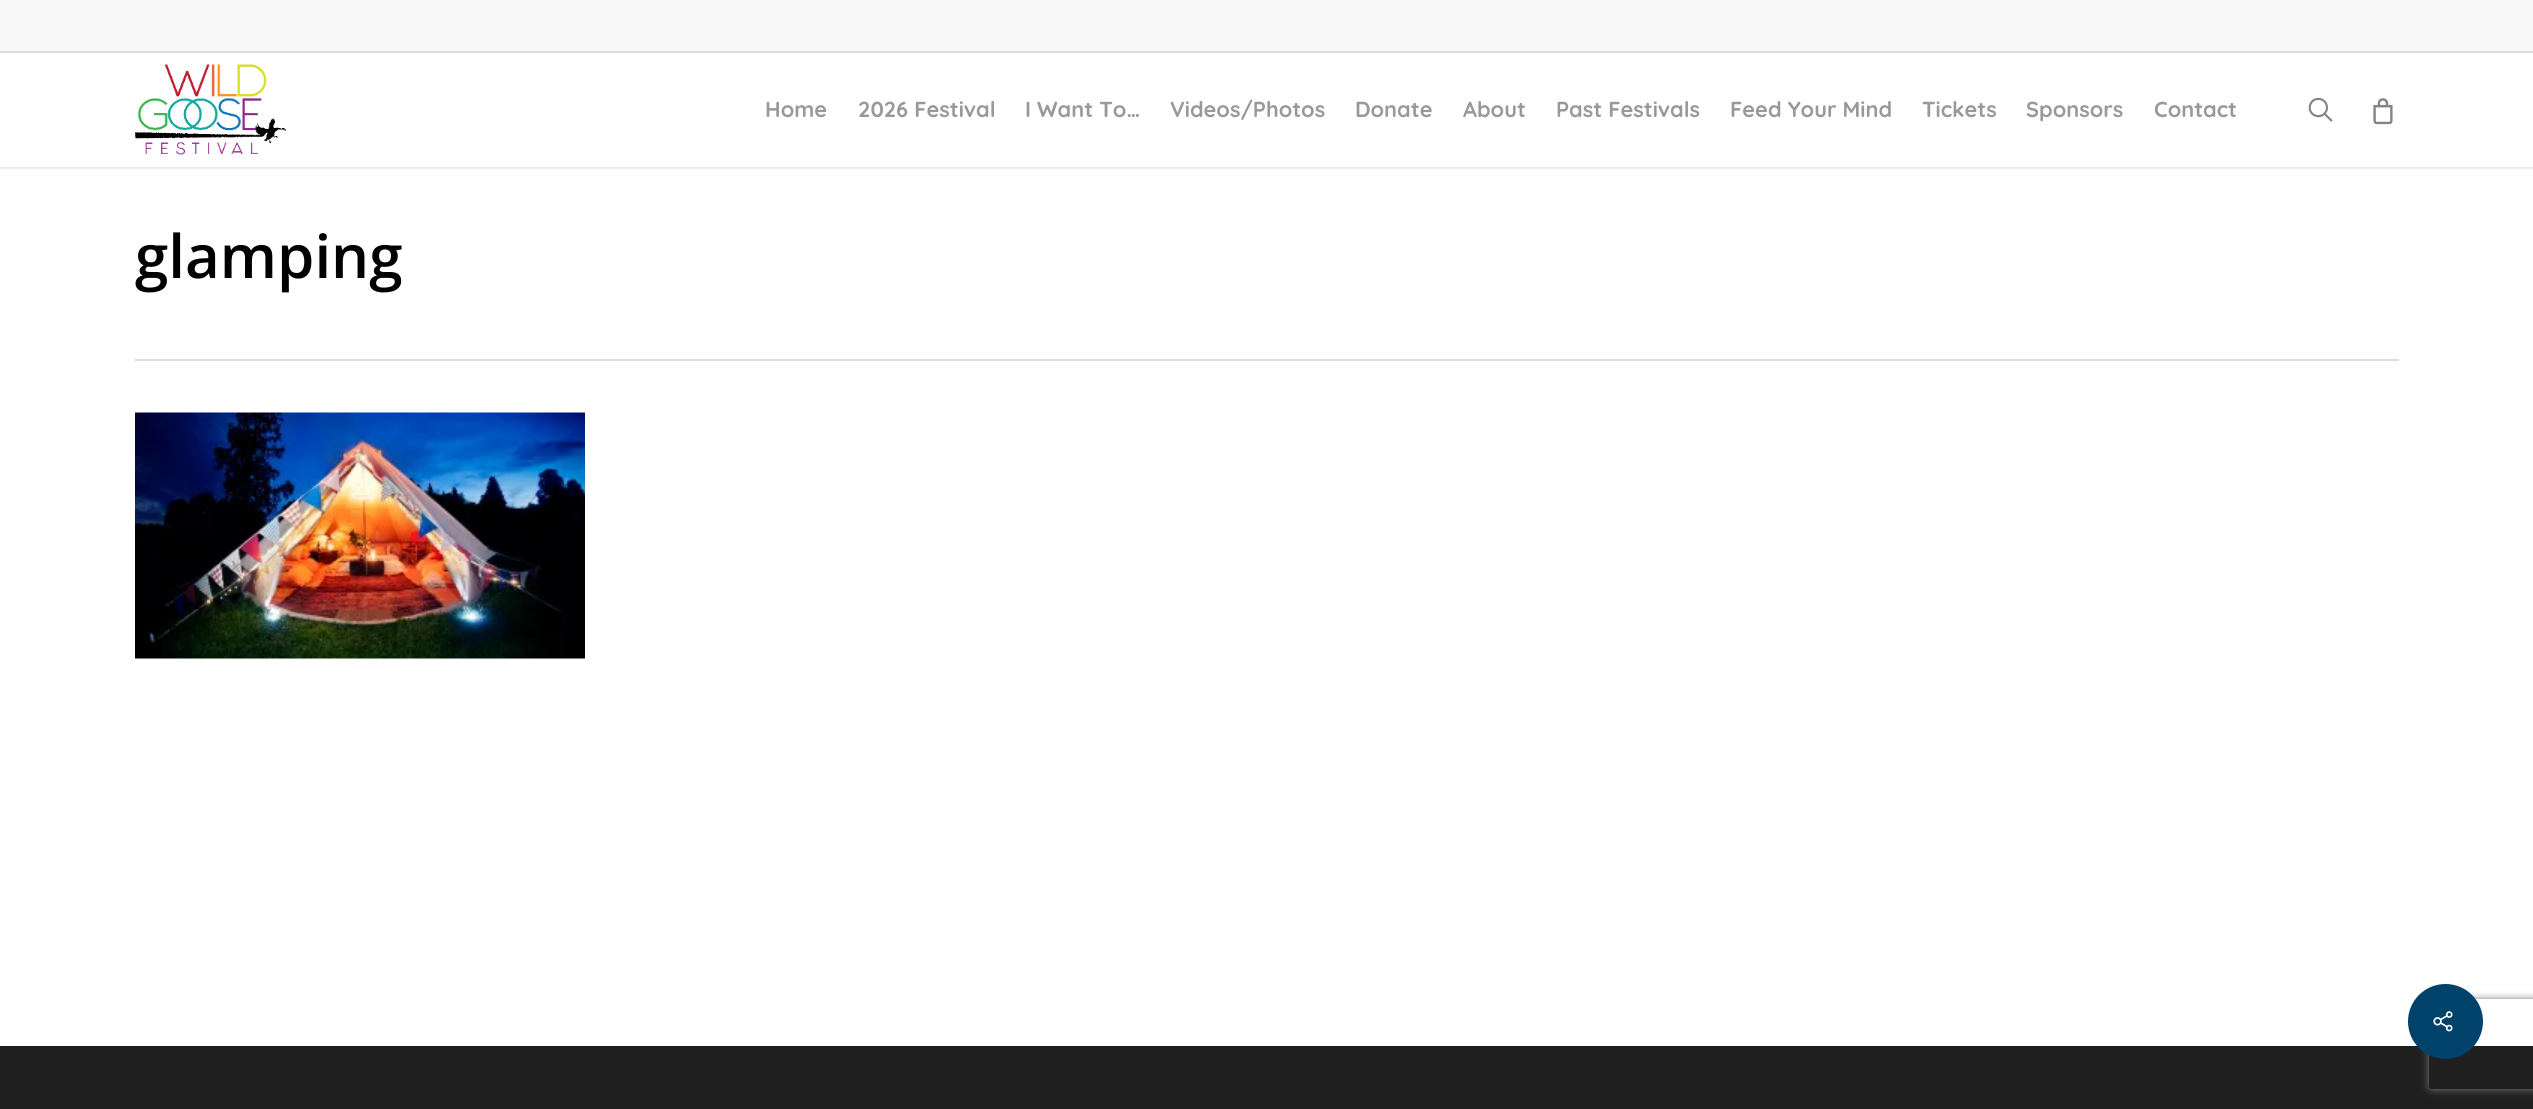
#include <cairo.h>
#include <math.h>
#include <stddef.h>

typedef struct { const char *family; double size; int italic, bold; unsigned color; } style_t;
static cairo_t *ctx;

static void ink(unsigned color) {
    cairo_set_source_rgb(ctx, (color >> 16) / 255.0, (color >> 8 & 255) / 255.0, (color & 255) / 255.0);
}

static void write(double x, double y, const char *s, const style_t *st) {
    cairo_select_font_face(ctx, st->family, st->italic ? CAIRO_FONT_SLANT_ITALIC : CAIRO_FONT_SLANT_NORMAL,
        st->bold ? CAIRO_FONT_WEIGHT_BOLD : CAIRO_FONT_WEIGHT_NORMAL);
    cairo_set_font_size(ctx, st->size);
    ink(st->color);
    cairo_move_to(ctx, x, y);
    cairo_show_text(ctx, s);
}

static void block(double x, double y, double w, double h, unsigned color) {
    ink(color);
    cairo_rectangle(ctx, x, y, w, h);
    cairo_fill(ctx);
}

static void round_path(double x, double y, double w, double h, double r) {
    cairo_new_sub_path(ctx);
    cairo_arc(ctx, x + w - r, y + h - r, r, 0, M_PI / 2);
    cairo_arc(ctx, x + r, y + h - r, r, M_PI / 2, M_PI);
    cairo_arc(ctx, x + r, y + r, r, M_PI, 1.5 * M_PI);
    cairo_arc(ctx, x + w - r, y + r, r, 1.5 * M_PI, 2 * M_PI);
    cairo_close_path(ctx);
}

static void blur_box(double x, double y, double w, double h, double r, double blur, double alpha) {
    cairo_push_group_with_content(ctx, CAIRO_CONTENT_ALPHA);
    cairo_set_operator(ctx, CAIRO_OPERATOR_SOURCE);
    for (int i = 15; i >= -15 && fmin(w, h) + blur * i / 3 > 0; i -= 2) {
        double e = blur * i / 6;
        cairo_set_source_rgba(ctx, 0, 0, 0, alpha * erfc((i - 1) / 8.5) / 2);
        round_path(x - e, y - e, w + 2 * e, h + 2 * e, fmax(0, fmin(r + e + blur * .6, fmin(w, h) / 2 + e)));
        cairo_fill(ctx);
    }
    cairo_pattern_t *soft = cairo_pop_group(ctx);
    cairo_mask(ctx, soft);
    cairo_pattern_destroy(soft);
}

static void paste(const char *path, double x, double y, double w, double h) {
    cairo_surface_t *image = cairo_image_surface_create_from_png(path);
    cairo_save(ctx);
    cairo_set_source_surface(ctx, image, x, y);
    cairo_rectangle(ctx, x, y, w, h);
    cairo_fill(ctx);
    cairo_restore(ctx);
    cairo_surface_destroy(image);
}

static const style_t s1 = {"Quicksand Light", 21.75, 0, 0, 0x999999};
static const style_t s2 = {"Open Sans SemiBold", 60, 0, 0, 0x000000};

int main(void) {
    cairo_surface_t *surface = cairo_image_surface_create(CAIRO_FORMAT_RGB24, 2533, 1109);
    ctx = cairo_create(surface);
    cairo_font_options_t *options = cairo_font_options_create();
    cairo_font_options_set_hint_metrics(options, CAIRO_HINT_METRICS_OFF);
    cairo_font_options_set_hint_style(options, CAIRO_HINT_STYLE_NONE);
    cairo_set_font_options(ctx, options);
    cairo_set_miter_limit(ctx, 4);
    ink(0xffffff);
    cairo_paint(ctx);
    ink(0x000000);
    blur_box(0, 0, 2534, 167, 0, 2, 0.22);
    block(0, 53, 2533, 114, 0xffffff);
    block(0, 0, 2533, 51, 0xf8f8f8);
    block(0, 51, 2533, 2, 0xdddddd);
    paste("pic1.png", 135, 64, 152, 91);
    write(765, 117, "Home", &s1);
    write(858, 117, "2026 Festival", &s1);
    write(1025, 117, "I Want To…", &s1);
    write(1170, 117, "Videos/Photos", &s1);
    write(1355, 117, "Donate", &s1);
    write(1463, 117, "About", &s1);
    write(1556, 117, "Past Festivals", &s1);
    write(1730, 117, "Feed Your Mind", &s1);
    write(1922, 117, "Tickets", &s1);
    write(2026, 117, "Sponsors", &s1);
    write(2154, 117, "Contact", &s1);
    paste("pic2.png", 2308, 97, 25, 25);
    paste("pic3.png", 2373, 98, 20, 27);
    block(135, 359, 2264, 2, 0xdddddd);
    write(135, 278, "glamping", &s2);
    paste("pic4.png", 135, 412, 450, 247);
    block(0, 1046, 2533, 63, 0x1f1f1f);
    cairo_save(ctx);
    cairo_set_fill_rule(ctx, CAIRO_FILL_RULE_EVEN_ODD);
    cairo_new_path(ctx);
    cairo_move_to(ctx, 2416, 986);
    cairo_line_to(ctx, 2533, 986);
    cairo_line_to(ctx, 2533, 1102);
    cairo_line_to(ctx, 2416, 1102);
    cairo_close_path(ctx);
    cairo_move_to(ctx, 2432, 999);
    cairo_line_to(ctx, 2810, 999);
    cairo_curve_to(ctx, 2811.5, 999, 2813, 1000.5, 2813, 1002);
    cairo_line_to(ctx, 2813, 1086);
    cairo_curve_to(ctx, 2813, 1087.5, 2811.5, 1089, 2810, 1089);
    cairo_line_to(ctx, 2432, 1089);
    cairo_curve_to(ctx, 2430.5, 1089, 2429, 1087.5, 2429, 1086);
    cairo_line_to(ctx, 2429, 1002);
    cairo_curve_to(ctx, 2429, 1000.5, 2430.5, 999, 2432, 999);
    cairo_close_path(ctx);
    cairo_clip(ctx);
    ink(0x808080);
    blur_box(2429, 999, 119, 90, 3, 4, 1);
    cairo_restore(ctx);
    ink(0x01426a);
    cairo_arc(ctx, 2445.5, 1021.5, 37.5, 0, 2 * M_PI);
    cairo_fill(ctx);
    paste("pic5.png", 2433, 1011, 20, 21);
    cairo_surface_write_to_png(surface, "screenshot.png");
    cairo_font_options_destroy(options);
    cairo_destroy(ctx);
    cairo_surface_destroy(surface);
    return 0;
}
